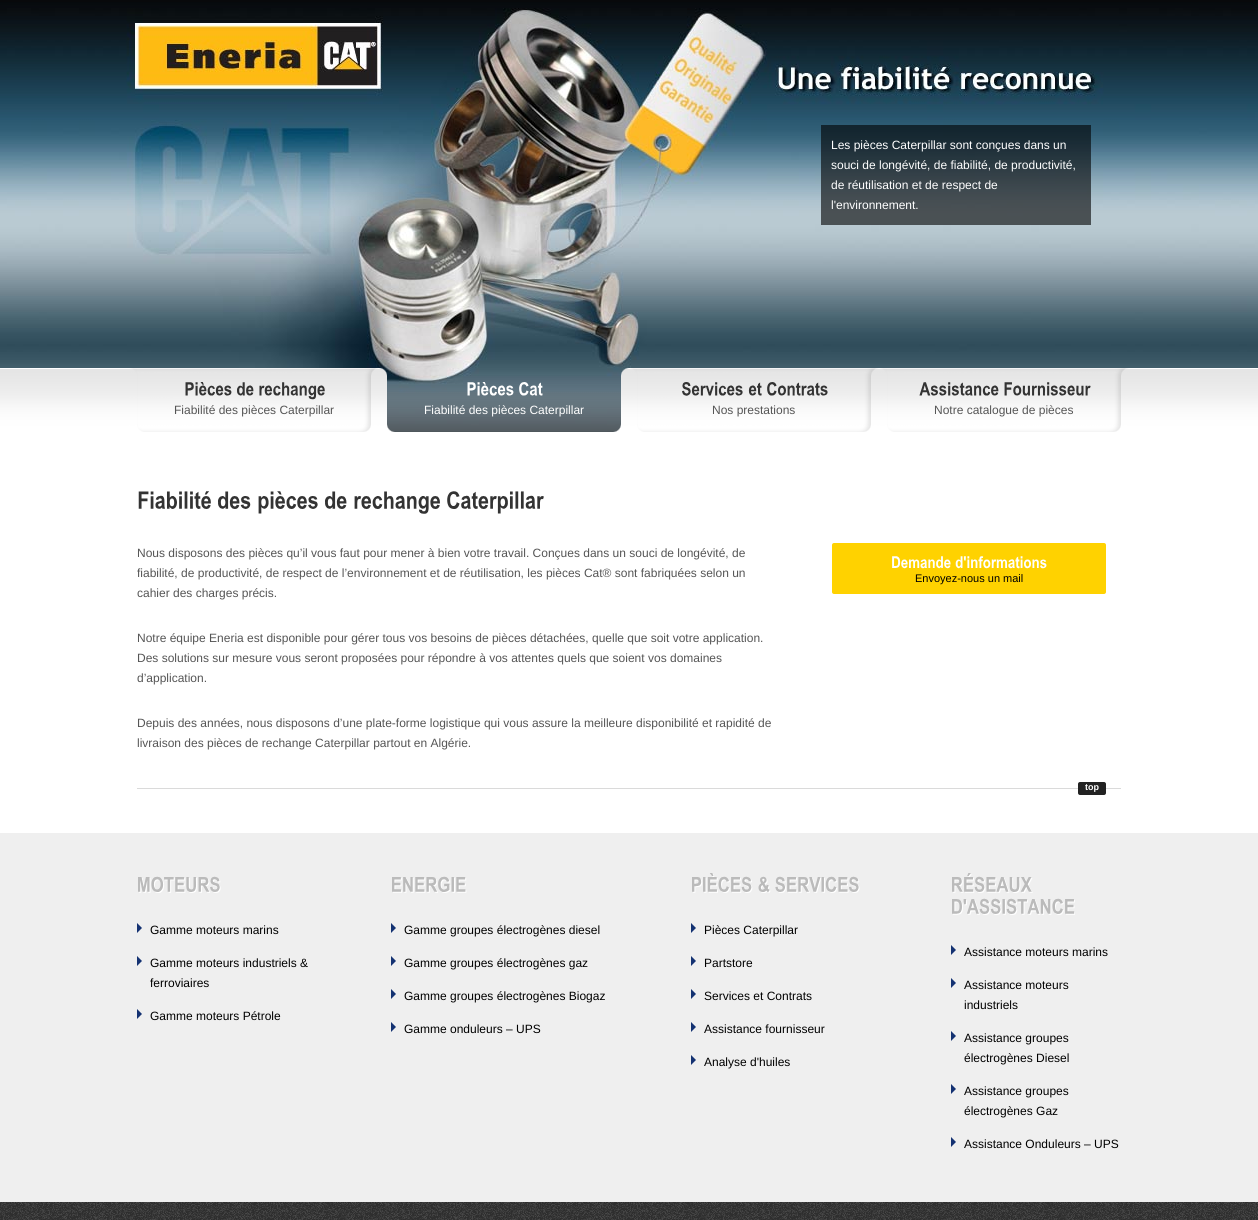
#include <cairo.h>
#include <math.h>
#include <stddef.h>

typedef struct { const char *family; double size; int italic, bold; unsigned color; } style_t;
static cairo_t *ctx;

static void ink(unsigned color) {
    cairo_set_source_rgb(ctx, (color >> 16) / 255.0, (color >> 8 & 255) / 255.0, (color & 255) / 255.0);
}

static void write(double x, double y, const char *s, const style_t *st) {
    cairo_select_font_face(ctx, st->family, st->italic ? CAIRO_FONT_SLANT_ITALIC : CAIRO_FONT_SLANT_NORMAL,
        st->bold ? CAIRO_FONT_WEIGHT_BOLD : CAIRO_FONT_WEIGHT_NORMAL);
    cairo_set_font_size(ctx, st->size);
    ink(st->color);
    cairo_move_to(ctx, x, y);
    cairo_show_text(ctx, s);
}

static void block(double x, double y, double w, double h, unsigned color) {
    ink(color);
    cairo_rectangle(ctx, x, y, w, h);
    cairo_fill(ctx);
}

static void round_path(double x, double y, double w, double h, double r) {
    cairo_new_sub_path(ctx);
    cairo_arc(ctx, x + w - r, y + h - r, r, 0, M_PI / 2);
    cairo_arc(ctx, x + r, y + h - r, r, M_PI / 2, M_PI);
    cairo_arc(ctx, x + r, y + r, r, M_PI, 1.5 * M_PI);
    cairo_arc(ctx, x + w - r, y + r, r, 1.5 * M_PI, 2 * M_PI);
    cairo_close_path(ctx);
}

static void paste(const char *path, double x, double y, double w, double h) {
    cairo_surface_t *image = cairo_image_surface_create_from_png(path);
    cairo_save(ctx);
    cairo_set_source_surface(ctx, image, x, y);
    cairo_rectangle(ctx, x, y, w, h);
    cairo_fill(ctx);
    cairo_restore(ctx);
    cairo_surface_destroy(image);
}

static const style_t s1 = {"Liberation Sans", 12, 0, 0, 0xffffff};
static const style_t s2 = {"Liberation Sans", 12, 0, 0, 0x555555};
static const style_t s3 = {"Liberation Sans", 11, 0, 0, 0x000000};
static const style_t s4 = {"Liberation Sans", 9, 0, 1, 0xffffff};
static const style_t s5 = {"Liberation Sans", 12, 0, 0, 0x000000};

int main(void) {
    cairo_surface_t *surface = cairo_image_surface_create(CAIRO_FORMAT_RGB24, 1258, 1220);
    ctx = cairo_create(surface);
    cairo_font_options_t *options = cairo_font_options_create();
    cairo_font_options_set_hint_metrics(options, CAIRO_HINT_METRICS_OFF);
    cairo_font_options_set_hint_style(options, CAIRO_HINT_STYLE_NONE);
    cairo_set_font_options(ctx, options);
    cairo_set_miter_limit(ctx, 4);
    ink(0xffffff);
    cairo_paint(ctx);
    paste("pic1.png", 0, 0, 1258, 432);
    cairo_set_source_rgba(ctx, 0, 0, 0, 0.6);
    cairo_rectangle(ctx, 821, 125, 270, 100);
    cairo_fill(ctx);
    write(831, 149, "Les pièces Caterpillar sont conçues dans un", &s1);
    write(831, 169, "souci de longévité, de fiabilité, de productivité,", &s1);
    write(831, 189, "de réutilisation et de respect de", &s1);
    write(831, 209, "l'environnement.", &s1);
    paste("pic2.png", 0, 368, 129, 64);
    paste("pic3.png", 129, 368, 250, 64);
    paste("pic4.png", 185, 382, 47, 14);
    paste("pic5.png", 237, 382, 17, 14);
    paste("pic6.png", 259, 382, 66, 18);
    write(174, 414, "Fiabilité des pièces Caterpillar", &s2);
    paste("pic7.png", 379, 368, 250, 64);
    paste("pic8.png", 467, 382, 47, 14);
    paste("pic9.png", 519, 382, 24, 14);
    write(424, 414, "Fiabilité des pièces Caterpillar", &s1);
    paste("pic3.png", 629, 368, 250, 64);
    paste("pic10.png", 682, 382, 61, 14);
    paste("pic11.png", 748, 382, 14, 14);
    paste("pic12.png", 767, 382, 61, 14);
    write(712, 414, "Nos prestations", &s2);
    paste("pic3.png", 879, 368, 250, 64);
    paste("pic13.png", 919, 382, 80, 14);
    paste("pic14.png", 1004, 382, 87, 14);
    write(934, 414, "Notre catalogue de pièces", &s2);
    paste("pic2.png", 1129, 368, 129, 64);
    paste("pic15.png", 138, 491, 73, 18);
    paste("pic16.png", 218, 491, 33, 18);
    paste("pic17.png", 258, 491, 60, 23);
    paste("pic18.png", 325, 491, 22, 18);
    paste("pic19.png", 354, 491, 86, 23);
    paste("pic20.png", 447, 491, 97, 23);
    write(137, 557, "Nous disposons des pièces qu’il vous faut pour mener à bien votre travail. Conçues dans un souci de longévité, de", &s2);
    write(137, 577, "fiabilité, de productivité, de respect de l’environnement et de réutilisation, les pièces Cat® sont fabriquées selon un", &s2);
    write(137, 597, "cahier des charges précis.", &s2);
    write(137, 642, "Notre équipe Eneria est disponible pour gérer tous vos besoins de pièces détachées, quelle que soit votre application.", &s2);
    write(137, 662, "Des solutions sur mesure vous seront proposées pour répondre à vos attentes quels que soient vos domaines", &s2);
    write(137, 682, "d’application.", &s2);
    write(137, 727, "Depuis des années, nous disposons d’une plate-forme logistique qui vous assure la meilleure disponibilité et rapidité de", &s2);
    write(137, 747, "livraison des pièces de rechange Caterpillar partout en Algérie.", &s2);
    ink(0xffd200);
    round_path(832, 543, 274, 51, 2);
    cairo_fill(ctx);
    paste("pic21.png", 892, 556, 59, 13);
    paste("pic22.png", 955, 556, 92, 13);
    write(915, 582, "Envoyez-nous un mail", &s3);
    block(137, 788, 984, 1, 0xdadada);
    ink(0x222222);
    round_path(1078, 782, 28, 13, 2);
    cairo_fill(ctx);
    write(1085, 790, "top", &s4);
    block(0, 833, 1258, 369, 0xefefef);
    paste("pic23.png", 138, 876, 83, 17);
    ink(0x143272);
    cairo_new_path(ctx);
    cairo_move_to(ctx, 137, 933);
    cairo_line_to(ctx, 137, 923);
    cairo_line_to(ctx, 142, 928);
    cairo_close_path(ctx);
    cairo_fill(ctx);
    write(150, 934, "Gamme moteurs marins", &s5);
    ink(0x143272);
    cairo_new_path(ctx);
    cairo_move_to(ctx, 137, 966);
    cairo_line_to(ctx, 137, 956);
    cairo_line_to(ctx, 142, 961);
    cairo_close_path(ctx);
    cairo_fill(ctx);
    write(150, 967, "Gamme moteurs industriels &", &s5);
    write(150, 987, "ferroviaires", &s5);
    ink(0x143272);
    cairo_new_path(ctx);
    cairo_move_to(ctx, 137, 1019);
    cairo_line_to(ctx, 137, 1009);
    cairo_line_to(ctx, 142, 1014);
    cairo_close_path(ctx);
    cairo_fill(ctx);
    write(150, 1020, "Gamme moteurs Pétrole", &s5);
    paste("pic24.png", 392, 876, 75, 17);
    ink(0x143272);
    cairo_new_path(ctx);
    cairo_move_to(ctx, 391, 933);
    cairo_line_to(ctx, 391, 923);
    cairo_line_to(ctx, 396, 928);
    cairo_close_path(ctx);
    cairo_fill(ctx);
    write(404, 934, "Gamme groupes électrogènes diesel", &s5);
    ink(0x143272);
    cairo_new_path(ctx);
    cairo_move_to(ctx, 391, 966);
    cairo_line_to(ctx, 391, 956);
    cairo_line_to(ctx, 396, 961);
    cairo_close_path(ctx);
    cairo_fill(ctx);
    write(404, 967, "Gamme groupes électrogènes gaz", &s5);
    ink(0x143272);
    cairo_new_path(ctx);
    cairo_move_to(ctx, 391, 999);
    cairo_line_to(ctx, 391, 989);
    cairo_line_to(ctx, 396, 994);
    cairo_close_path(ctx);
    cairo_fill(ctx);
    write(404, 1000, "Gamme groupes électrogènes Biogaz", &s5);
    ink(0x143272);
    cairo_new_path(ctx);
    cairo_move_to(ctx, 391, 1032);
    cairo_line_to(ctx, 391, 1022);
    cairo_line_to(ctx, 396, 1027);
    cairo_close_path(ctx);
    cairo_fill(ctx);
    write(404, 1033, "Gamme onduleurs – UPS", &s5);
    paste("pic25.png", 692, 873, 61, 20);
    paste("pic26.png", 758, 876, 13, 17);
    paste("pic27.png", 775, 876, 85, 17);
    ink(0x143272);
    cairo_new_path(ctx);
    cairo_move_to(ctx, 691, 933);
    cairo_line_to(ctx, 691, 923);
    cairo_line_to(ctx, 696, 928);
    cairo_close_path(ctx);
    cairo_fill(ctx);
    write(704, 934, "Pièces Caterpillar", &s5);
    ink(0x143272);
    cairo_new_path(ctx);
    cairo_move_to(ctx, 691, 966);
    cairo_line_to(ctx, 691, 956);
    cairo_line_to(ctx, 696, 961);
    cairo_close_path(ctx);
    cairo_fill(ctx);
    write(704, 967, "Partstore", &s5);
    ink(0x143272);
    cairo_new_path(ctx);
    cairo_move_to(ctx, 691, 999);
    cairo_line_to(ctx, 691, 989);
    cairo_line_to(ctx, 696, 994);
    cairo_close_path(ctx);
    cairo_fill(ctx);
    write(704, 1000, "Services et Contrats", &s5);
    ink(0x143272);
    cairo_new_path(ctx);
    cairo_move_to(ctx, 691, 1032);
    cairo_line_to(ctx, 691, 1022);
    cairo_line_to(ctx, 696, 1027);
    cairo_close_path(ctx);
    cairo_fill(ctx);
    write(704, 1033, "Assistance fournisseur", &s5);
    ink(0x143272);
    cairo_new_path(ctx);
    cairo_move_to(ctx, 691, 1065);
    cairo_line_to(ctx, 691, 1055);
    cairo_line_to(ctx, 696, 1060);
    cairo_close_path(ctx);
    cairo_fill(ctx);
    write(704, 1066, "Analyse d'huiles", &s5);
    paste("pic28.png", 952, 873, 81, 20);
    paste("pic29.png", 952, 898, 123, 17);
    ink(0x143272);
    cairo_new_path(ctx);
    cairo_move_to(ctx, 951, 955);
    cairo_line_to(ctx, 951, 945);
    cairo_line_to(ctx, 956, 950);
    cairo_close_path(ctx);
    cairo_fill(ctx);
    write(964, 956, "Assistance moteurs marins", &s5);
    ink(0x143272);
    cairo_new_path(ctx);
    cairo_move_to(ctx, 951, 988);
    cairo_line_to(ctx, 951, 978);
    cairo_line_to(ctx, 956, 983);
    cairo_close_path(ctx);
    cairo_fill(ctx);
    write(964, 989, "Assistance moteurs", &s5);
    write(964, 1009, "industriels", &s5);
    ink(0x143272);
    cairo_new_path(ctx);
    cairo_move_to(ctx, 951, 1041);
    cairo_line_to(ctx, 951, 1031);
    cairo_line_to(ctx, 956, 1036);
    cairo_close_path(ctx);
    cairo_fill(ctx);
    write(964, 1042, "Assistance groupes", &s5);
    write(964, 1062, "électrogènes Diesel", &s5);
    ink(0x143272);
    cairo_new_path(ctx);
    cairo_move_to(ctx, 951, 1094);
    cairo_line_to(ctx, 951, 1084);
    cairo_line_to(ctx, 956, 1089);
    cairo_close_path(ctx);
    cairo_fill(ctx);
    write(964, 1095, "Assistance groupes", &s5);
    write(964, 1115, "électrogènes Gaz", &s5);
    ink(0x143272);
    cairo_new_path(ctx);
    cairo_move_to(ctx, 951, 1147);
    cairo_line_to(ctx, 951, 1137);
    cairo_line_to(ctx, 956, 1142);
    cairo_close_path(ctx);
    cairo_fill(ctx);
    write(964, 1148, "Assistance Onduleurs – UPS", &s5);
    block(0, 1202, 1258, 18, 0x333333);
    paste("pic30.png", 0, 1202, 1258, 18);
    cairo_surface_write_to_png(surface, "screenshot.png");
    cairo_font_options_destroy(options);
    cairo_destroy(ctx);
    cairo_surface_destroy(surface);
    return 0;
}
